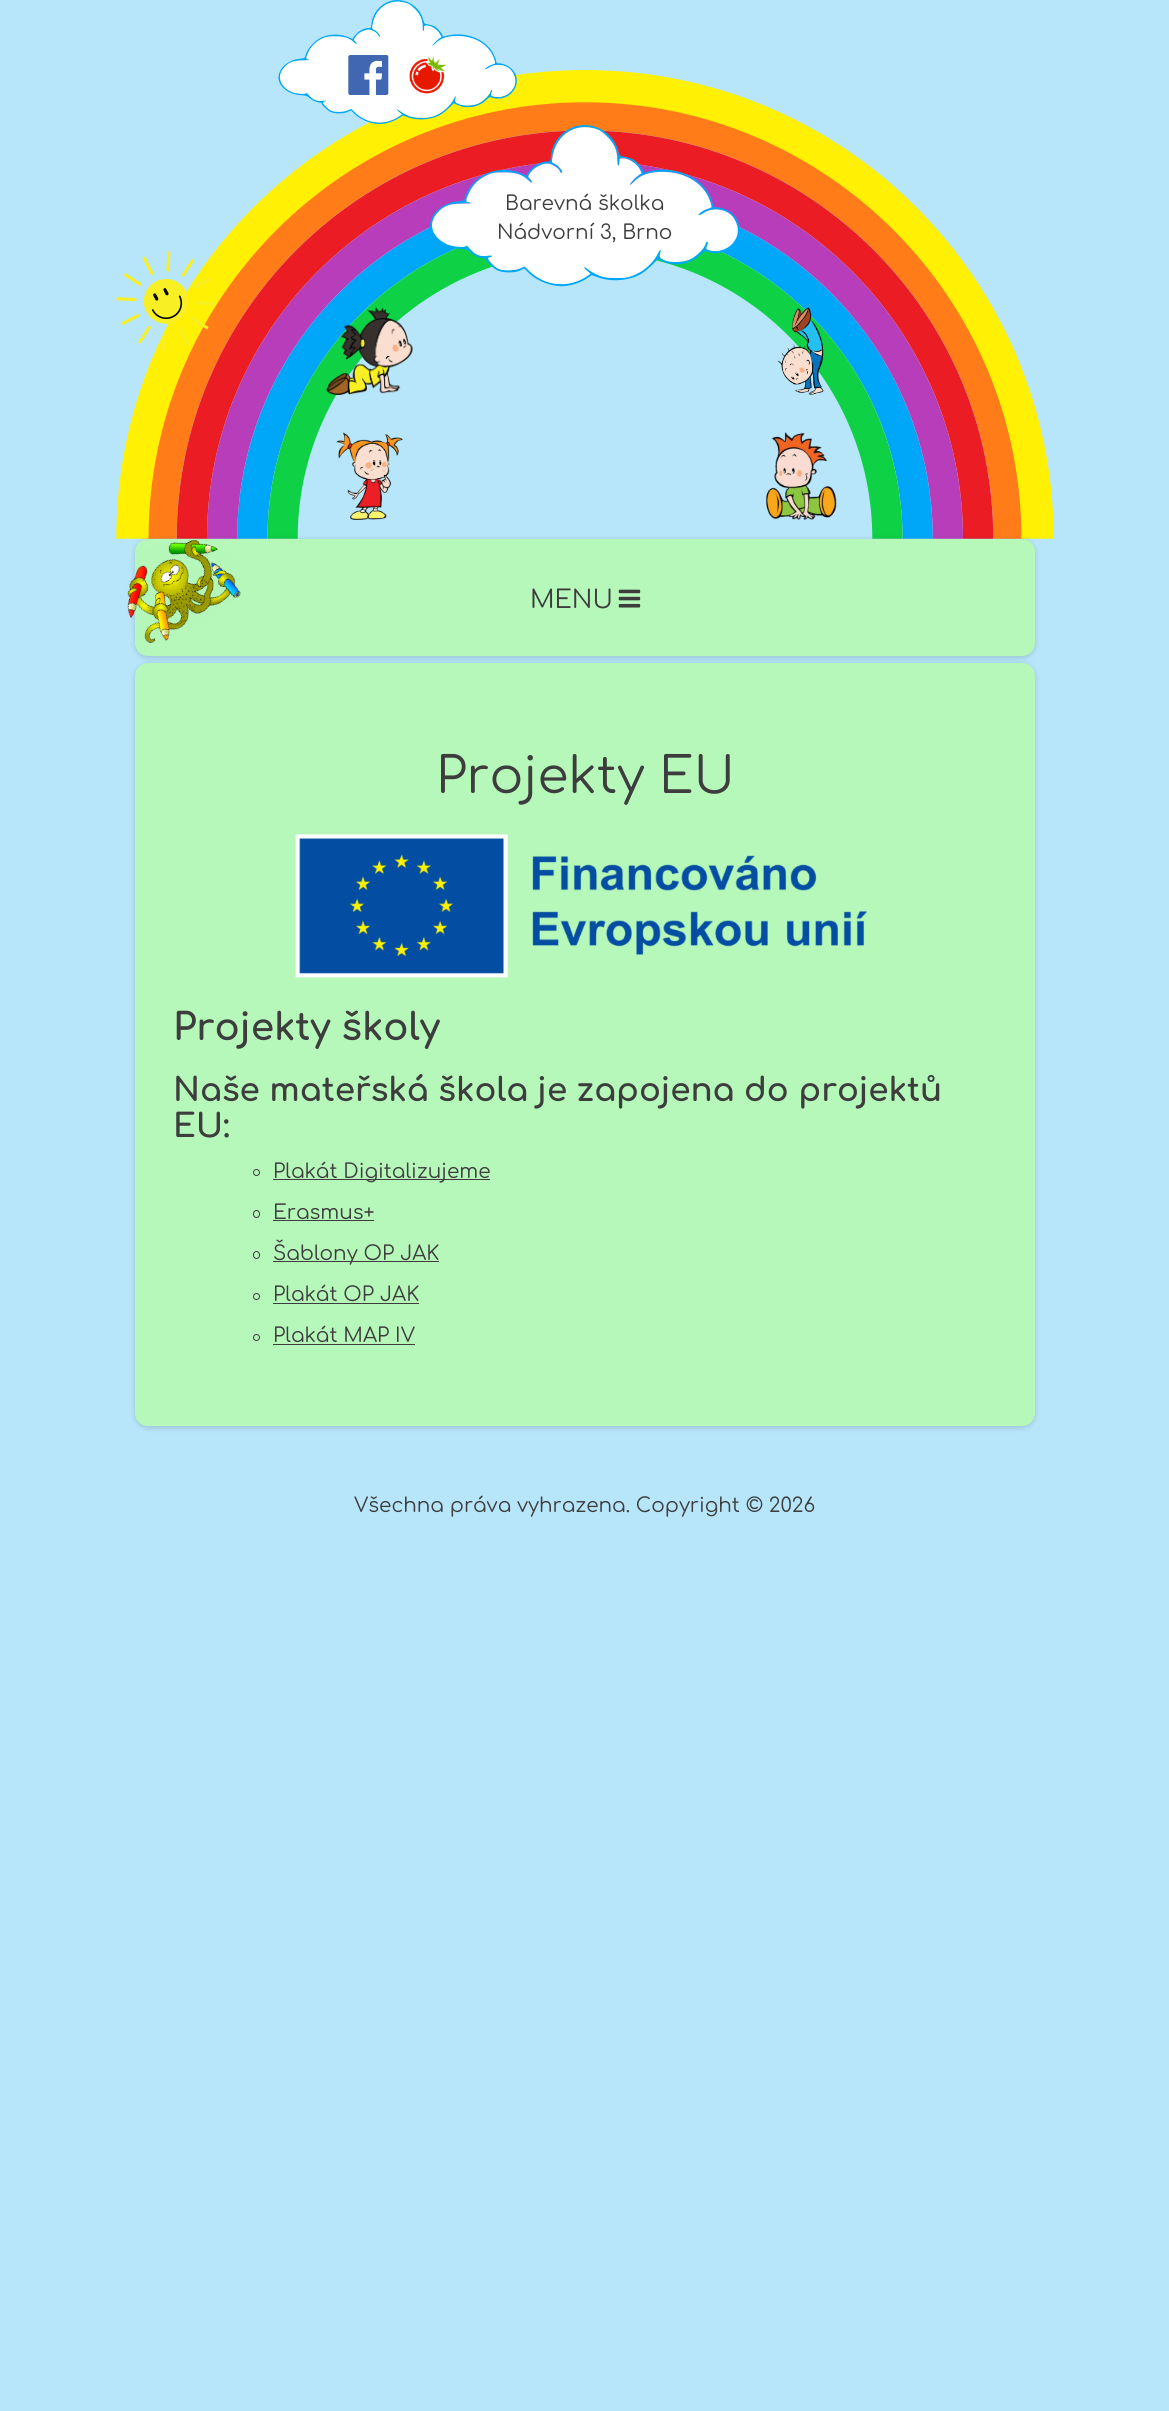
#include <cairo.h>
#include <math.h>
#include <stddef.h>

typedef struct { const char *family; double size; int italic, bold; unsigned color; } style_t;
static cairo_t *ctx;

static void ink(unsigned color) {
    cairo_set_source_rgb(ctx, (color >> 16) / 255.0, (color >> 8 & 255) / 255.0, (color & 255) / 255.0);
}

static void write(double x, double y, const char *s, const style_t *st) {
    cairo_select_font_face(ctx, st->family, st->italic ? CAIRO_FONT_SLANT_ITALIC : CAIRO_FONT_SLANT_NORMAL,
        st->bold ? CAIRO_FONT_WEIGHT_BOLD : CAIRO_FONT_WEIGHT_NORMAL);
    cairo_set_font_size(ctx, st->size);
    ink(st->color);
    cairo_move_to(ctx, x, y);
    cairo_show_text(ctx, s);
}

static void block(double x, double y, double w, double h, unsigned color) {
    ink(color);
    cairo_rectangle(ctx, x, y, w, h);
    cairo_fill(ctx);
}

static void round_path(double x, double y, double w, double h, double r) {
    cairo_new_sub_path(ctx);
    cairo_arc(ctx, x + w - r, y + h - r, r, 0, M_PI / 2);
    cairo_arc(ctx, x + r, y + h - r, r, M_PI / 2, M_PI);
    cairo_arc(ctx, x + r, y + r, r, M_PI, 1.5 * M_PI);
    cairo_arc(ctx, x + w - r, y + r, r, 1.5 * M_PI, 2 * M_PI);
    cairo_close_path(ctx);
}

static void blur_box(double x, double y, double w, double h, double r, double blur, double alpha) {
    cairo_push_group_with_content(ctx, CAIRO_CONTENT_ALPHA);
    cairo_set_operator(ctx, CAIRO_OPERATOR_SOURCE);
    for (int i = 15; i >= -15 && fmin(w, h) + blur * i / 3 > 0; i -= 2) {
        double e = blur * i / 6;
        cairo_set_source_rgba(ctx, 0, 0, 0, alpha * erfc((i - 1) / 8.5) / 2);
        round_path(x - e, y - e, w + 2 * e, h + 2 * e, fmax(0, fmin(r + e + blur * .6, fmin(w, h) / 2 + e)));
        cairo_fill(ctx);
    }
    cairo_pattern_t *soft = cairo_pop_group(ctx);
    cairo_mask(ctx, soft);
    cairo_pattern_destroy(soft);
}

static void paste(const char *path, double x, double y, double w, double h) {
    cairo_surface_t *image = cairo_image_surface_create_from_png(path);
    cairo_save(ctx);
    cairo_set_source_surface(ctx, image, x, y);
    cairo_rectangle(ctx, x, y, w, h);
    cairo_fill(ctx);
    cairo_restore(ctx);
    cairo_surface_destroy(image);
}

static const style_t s1 = {"Comfortaa", 20, 0, 0, 0x3d3d3d};
static const style_t s2 = {"Comfortaa", 25, 0, 0, 0x3d3d3d};
static const style_t s3 = {"Comfortaa", 50, 0, 0, 0x3d3d3d};
static const style_t s4 = {"Comfortaa", 37.5, 0, 1, 0x3d3d3d};
static const style_t s5 = {"Comfortaa", 32.5, 0, 1, 0x3d3d3d};

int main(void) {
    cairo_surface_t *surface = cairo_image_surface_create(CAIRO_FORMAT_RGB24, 1169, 2411);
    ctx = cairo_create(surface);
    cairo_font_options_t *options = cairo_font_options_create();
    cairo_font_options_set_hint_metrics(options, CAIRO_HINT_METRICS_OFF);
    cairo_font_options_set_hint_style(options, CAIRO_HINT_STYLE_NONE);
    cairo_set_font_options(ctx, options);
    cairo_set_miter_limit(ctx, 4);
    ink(0xb7e6fa);
    cairo_paint(ctx);
    paste("pic1.png", 116, 70, 938, 469);
    paste("pic2.png", 116, 251, 100, 100);
    paste("pic3.png", 326, 307, 87, 88);
    paste("pic4.png", 777, 307, 47, 88);
    paste("pic5.png", 336, 432, 67, 88);
    paste("pic6.png", 766, 432, 71, 88);
    paste("pic7.png", 278, 0, 239, 124);
    paste("pic8.png", 348, 55, 41, 40);
    paste("pic9.png", 409, 56, 38, 38);
    paste("pic10.png", 430, 125, 310, 162);
    write(505, 210, "Barevná školka", &s1);
    write(497, 239, "Nádvorní 3, Brno", &s1);
    ink(0x000000);
    blur_box(135, 540, 900, 118, 13, 3, 0.15);
    ink(0xb6f7ba);
    round_path(135, 539, 900, 117, 13);
    cairo_fill(ctx);
    paste("pic11.png", 127, 539, 114, 105);
    write(530, 608, "MENU", &s2);
    paste("pic12.png", 618, 589, 23, 19);
    ink(0x000000);
    blur_box(135, 664, 900, 764, 13, 3, 0.15);
    ink(0xb6f7ba);
    round_path(135, 663, 900, 763, 13);
    cairo_fill(ctx);
    write(436, 793, "Projekty EU", &s3);
    paste("pic13.png", 295, 834, 572, 144);
    write(173, 1040, "Projekty školy", &s4);
    write(173, 1101, "Naše mateřská škola je zapojena do projektů", &s5);
    write(173, 1137, "EU:", &s5);
    cairo_new_path(ctx);
    cairo_arc(ctx, 256.5, 1172.5, 3, 0, 2 * M_PI);
    cairo_set_line_width(ctx, 1);
    cairo_stroke(ctx);
    block(273, 1179, 217, 1, 0x3d3d3d);
    write(273, 1178, "Plakát Digitalizujeme", &s1);
    round_path(253.5, 1210.5, 6, 7, 3);
    cairo_stroke(ctx);
    write(273, 1219, "Erasmus+", &s1);
    block(273, 1220, 101, 1, 0x3d3d3d);
    round_path(253.5, 1251.5, 6, 7, 3);
    cairo_stroke(ctx);
    block(273, 1261, 166, 1, 0x3d3d3d);
    write(273, 1260, "Šablony OP JAK", &s1);
    cairo_new_path(ctx);
    cairo_arc(ctx, 256.5, 1296.5, 3, 0, 2 * M_PI);
    cairo_stroke(ctx);
    write(273, 1301, "Plakát OP JAK", &s1);
    block(273, 1303, 146, 1, 0x3d3d3d);
    cairo_new_path(ctx);
    cairo_arc(ctx, 256.5, 1337.5, 3, 0, 2 * M_PI);
    cairo_stroke(ctx);
    write(273, 1342, "Plakát MAP IV", &s1);
    block(273, 1344, 142, 1, 0x3d3d3d);
    write(354, 1512, "Všechna práva vyhrazena. Copyright © 2026", &s1);
    cairo_surface_write_to_png(surface, "screenshot.png");
    cairo_font_options_destroy(options);
    cairo_destroy(ctx);
    cairo_surface_destroy(surface);
    return 0;
}
